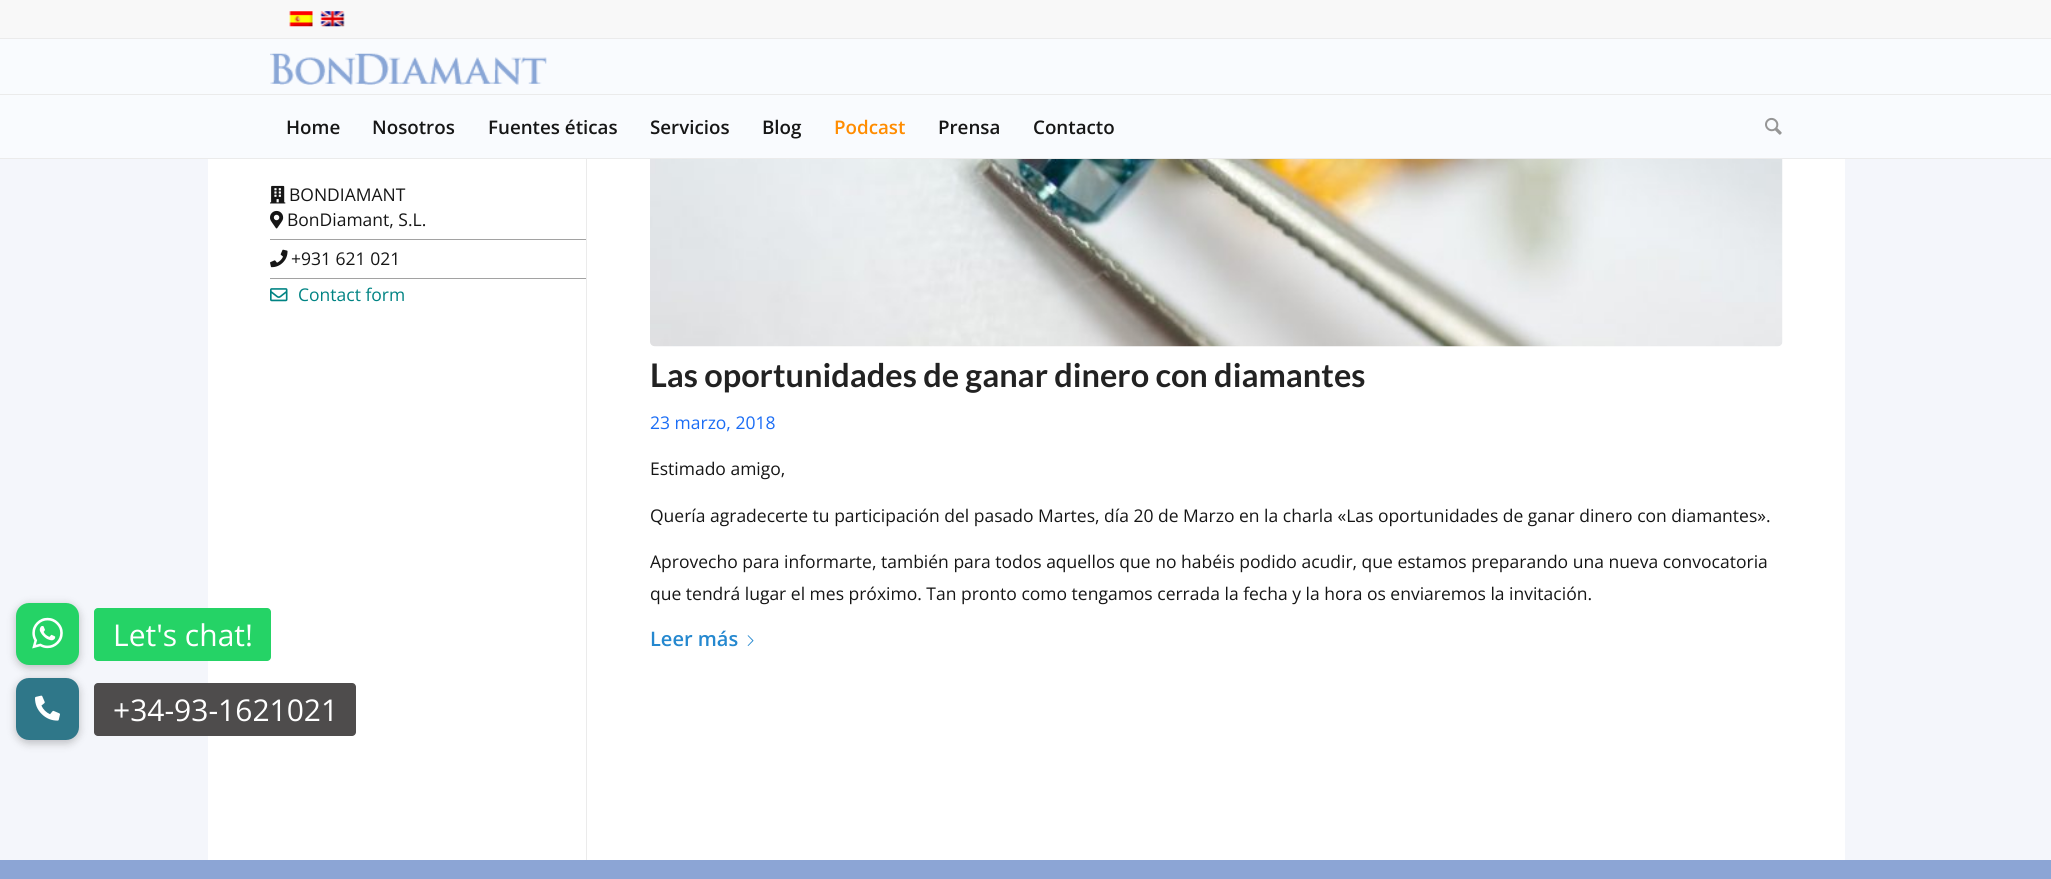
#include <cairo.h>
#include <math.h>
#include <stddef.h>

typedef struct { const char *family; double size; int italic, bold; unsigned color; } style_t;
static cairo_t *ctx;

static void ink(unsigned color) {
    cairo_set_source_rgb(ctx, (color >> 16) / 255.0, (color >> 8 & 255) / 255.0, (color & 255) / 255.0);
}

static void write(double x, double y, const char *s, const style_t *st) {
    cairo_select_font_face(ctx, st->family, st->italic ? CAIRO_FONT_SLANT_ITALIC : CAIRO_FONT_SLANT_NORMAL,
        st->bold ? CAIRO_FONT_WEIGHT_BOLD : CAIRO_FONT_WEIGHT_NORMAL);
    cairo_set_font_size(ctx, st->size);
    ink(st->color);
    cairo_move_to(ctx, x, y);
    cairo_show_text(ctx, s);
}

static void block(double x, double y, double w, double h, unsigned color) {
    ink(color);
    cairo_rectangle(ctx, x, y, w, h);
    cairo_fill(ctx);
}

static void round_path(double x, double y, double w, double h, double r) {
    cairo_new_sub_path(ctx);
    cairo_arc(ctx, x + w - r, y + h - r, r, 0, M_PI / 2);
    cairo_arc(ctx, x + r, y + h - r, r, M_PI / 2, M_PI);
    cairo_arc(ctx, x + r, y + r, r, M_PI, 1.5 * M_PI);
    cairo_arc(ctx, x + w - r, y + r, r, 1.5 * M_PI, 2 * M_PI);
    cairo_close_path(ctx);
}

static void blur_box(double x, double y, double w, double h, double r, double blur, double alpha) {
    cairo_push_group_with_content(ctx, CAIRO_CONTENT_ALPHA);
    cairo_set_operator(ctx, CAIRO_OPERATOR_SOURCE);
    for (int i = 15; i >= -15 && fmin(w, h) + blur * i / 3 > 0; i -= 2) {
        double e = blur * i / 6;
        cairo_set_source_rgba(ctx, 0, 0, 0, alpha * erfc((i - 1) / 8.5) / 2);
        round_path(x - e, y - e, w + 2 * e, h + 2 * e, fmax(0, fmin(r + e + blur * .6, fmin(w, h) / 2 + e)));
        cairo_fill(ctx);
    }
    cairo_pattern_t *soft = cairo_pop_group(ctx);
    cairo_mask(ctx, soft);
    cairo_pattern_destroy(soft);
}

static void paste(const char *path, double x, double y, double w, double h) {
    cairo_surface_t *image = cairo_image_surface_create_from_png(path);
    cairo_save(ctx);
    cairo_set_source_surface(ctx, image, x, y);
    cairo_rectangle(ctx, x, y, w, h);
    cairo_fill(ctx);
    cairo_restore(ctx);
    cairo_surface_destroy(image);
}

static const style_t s1 = {"Open Sans SemiBold", 18.75, 0, 0, 0x161616};
static const style_t s2 = {"Open Sans SemiBold", 18.75, 0, 0, 0xff8c00};
static const style_t s3 = {"Open Sans", 17.5, 0, 0, 0x161616};
static const style_t s4 = {"Open Sans", 17.5, 0, 0, 0x008383};
static const style_t s5 = {"Lato", 32.5, 0, 1, 0x222222};
static const style_t s6 = {"Open Sans", 17.5, 0, 0, 0x1b6df5};
static const style_t s7 = {"Open Sans SemiBold", 20, 0, 0, 0x2588cf};
static const style_t s8 = {"Open Sans", 30, 0, 0, 0xffffff};

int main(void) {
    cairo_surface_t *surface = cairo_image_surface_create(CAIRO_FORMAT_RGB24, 2051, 879);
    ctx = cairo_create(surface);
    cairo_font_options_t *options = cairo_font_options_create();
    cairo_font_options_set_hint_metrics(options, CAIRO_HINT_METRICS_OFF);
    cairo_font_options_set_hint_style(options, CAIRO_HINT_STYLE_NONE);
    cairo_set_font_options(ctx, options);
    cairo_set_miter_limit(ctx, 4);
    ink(0xf4f6fb);
    cairo_paint(ctx);
    block(0, 0, 2051, 38, 0xf8f8f8);
    block(0, 38, 2051, 1, 0xebebeb);
    paste("pic1.png", 289, 11, 24, 16);
    paste("pic2.png", 320, 11, 25, 16);
    block(0, 39, 2051, 119, 0xf9fbfe);
    block(0, 158, 2051, 1, 0xebebeb);
    paste("pic3.png", 270, 53, 277, 32);
    block(0, 94, 2051, 1, 0xebebeb);
    write(286, 134, "Home", &s1);
    write(372, 134, "Nosotros", &s1);
    write(488, 134, "Fuentes éticas", &s1);
    write(650, 134, "Servicios", &s1);
    write(762, 134, "Blog", &s1);
    write(834, 134, "Podcast", &s2);
    write(938, 134, "Prensa", &s1);
    write(1033, 134, "Contacto", &s1);
    paste("pic4.png", 1765, 117, 17, 18);
    block(208, 159, 1637, 701, 0xffffff);
    block(270, 239, 316, 1, 0xa2a2a2);
    paste("pic5.png", 270, 185, 16, 19);
    write(289, 201, "BONDIAMANT", &s3);
    paste("pic6.png", 270, 210, 14, 19);
    write(287, 226, "BonDiamant, S.L.", &s3);
    block(270, 278, 316, 1, 0xa2a2a2);
    paste("pic7.png", 270, 249, 18, 19);
    write(291, 265, "+931 621 021", &s3);
    paste("pic8.png", 270, 288, 18, 14);
    write(298, 301, "Contact form", &s4);
    block(586, 159, 1, 701, 0xebebeb);
    paste("pic9.png", 650, 159, 1133, 188);
    write(650, 387, "Las oportunidades de ganar dinero con diamantes", &s5);
    write(650, 429, "23 marzo, 2018", &s6);
    write(650, 475, "Estimado amigo,", &s3);
    write(650, 522, "Quería agradecerte tu participación del pasado Martes, día 20 de Marzo en la charla «Las oportunidades de ganar dinero con diamantes».", &s3);
    write(650, 568, "Aprovecho para informarte, también para todos aquellos que no habéis podido acudir, que estamos preparando una nueva convocatoria", &s3);
    write(650, 600, "que tendrá lugar el mes próximo. Tan pronto como tengamos cerrada la fecha y la hora os enviaremos la invitación.", &s3);
    write(650, 646, "Leer más", &s7);
    paste("pic10.png", 747, 635, 7, 11);
    block(0, 860, 2051, 19, 0x8ca5d5);
    ink(0x000000);
    blur_box(15, 679, 65, 65, 14, 4, 0.2);
    ink(0x2f7789);
    round_path(16, 678, 63, 62, 13);
    cairo_fill(ctx);
    ink(0x000000);
    blur_box(15, 604, 65, 65, 14, 4, 0.2);
    ink(0x25d366);
    round_path(16, 603, 63, 62, 13);
    cairo_fill(ctx);
    paste("pic11.png", 32, 617, 31, 32);
    round_path(94, 608, 177, 53, 4);
    cairo_fill(ctx);
    write(113, 646, "Let's chat!", &s8);
    paste("pic12.png", 35, 695, 25, 26);
    ink(0x4e4c4c);
    round_path(94, 683, 262, 53, 4);
    cairo_fill(ctx);
    write(113, 721, "+34-93-1621021", &s8);
    cairo_surface_write_to_png(surface, "screenshot.png");
    cairo_font_options_destroy(options);
    cairo_destroy(ctx);
    cairo_surface_destroy(surface);
    return 0;
}
